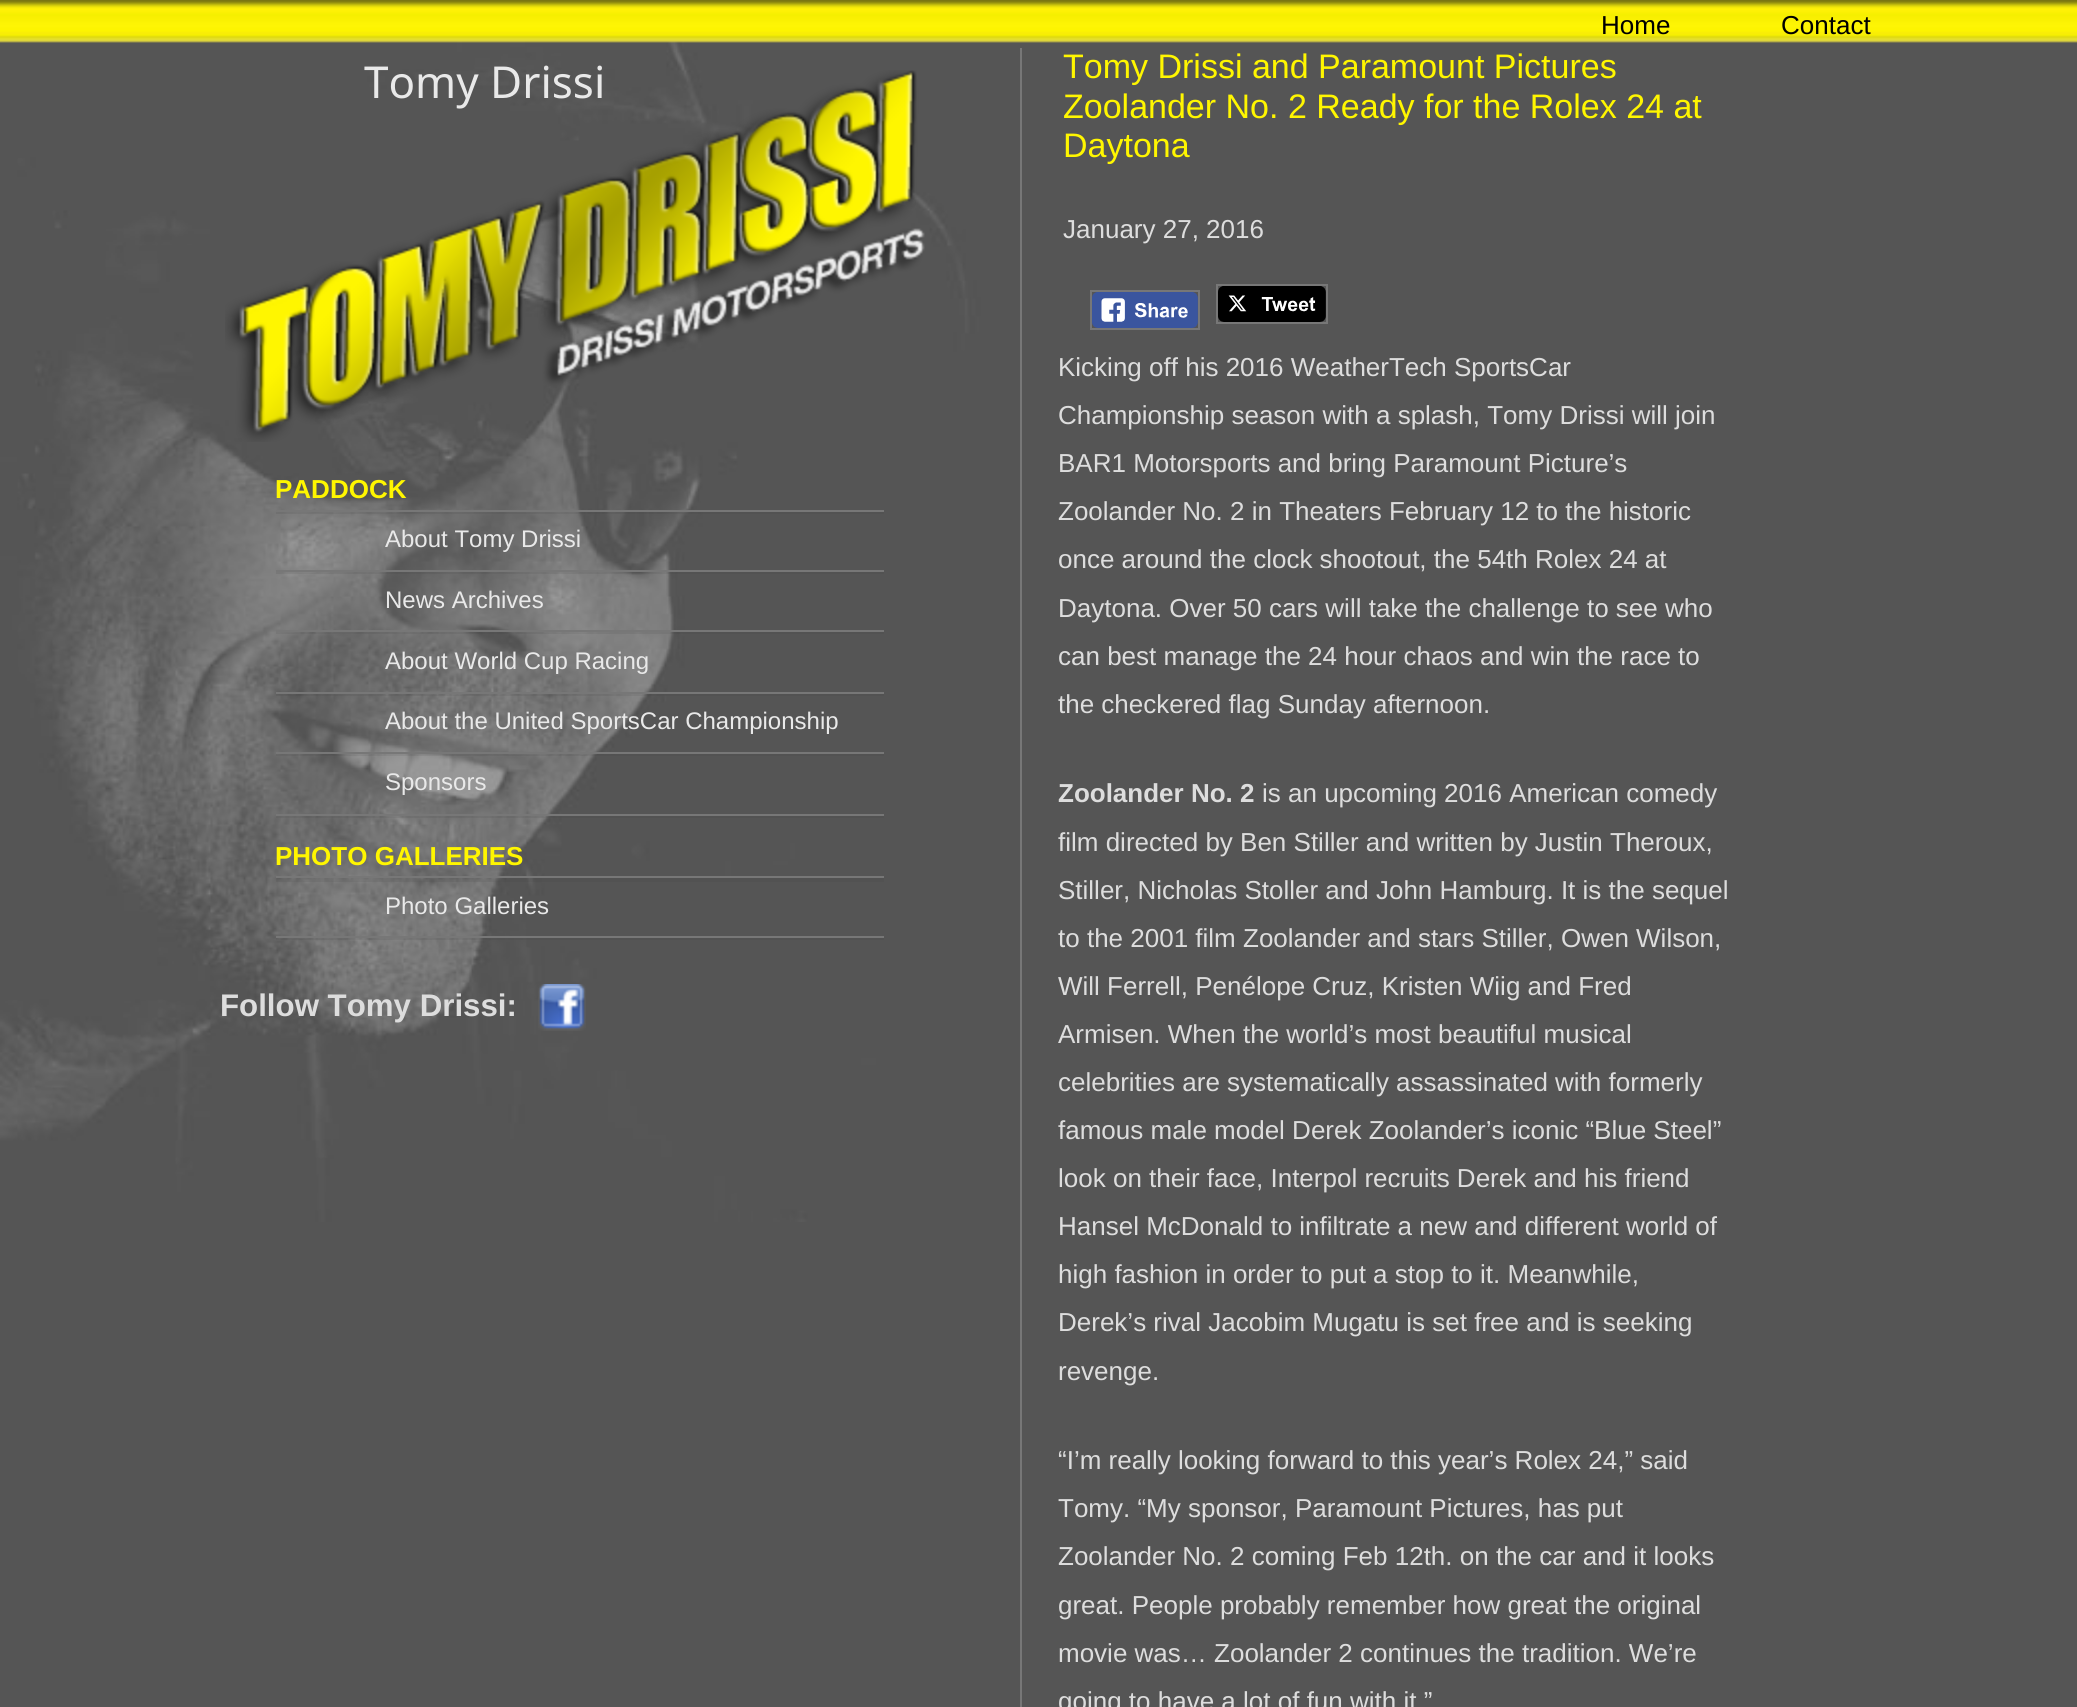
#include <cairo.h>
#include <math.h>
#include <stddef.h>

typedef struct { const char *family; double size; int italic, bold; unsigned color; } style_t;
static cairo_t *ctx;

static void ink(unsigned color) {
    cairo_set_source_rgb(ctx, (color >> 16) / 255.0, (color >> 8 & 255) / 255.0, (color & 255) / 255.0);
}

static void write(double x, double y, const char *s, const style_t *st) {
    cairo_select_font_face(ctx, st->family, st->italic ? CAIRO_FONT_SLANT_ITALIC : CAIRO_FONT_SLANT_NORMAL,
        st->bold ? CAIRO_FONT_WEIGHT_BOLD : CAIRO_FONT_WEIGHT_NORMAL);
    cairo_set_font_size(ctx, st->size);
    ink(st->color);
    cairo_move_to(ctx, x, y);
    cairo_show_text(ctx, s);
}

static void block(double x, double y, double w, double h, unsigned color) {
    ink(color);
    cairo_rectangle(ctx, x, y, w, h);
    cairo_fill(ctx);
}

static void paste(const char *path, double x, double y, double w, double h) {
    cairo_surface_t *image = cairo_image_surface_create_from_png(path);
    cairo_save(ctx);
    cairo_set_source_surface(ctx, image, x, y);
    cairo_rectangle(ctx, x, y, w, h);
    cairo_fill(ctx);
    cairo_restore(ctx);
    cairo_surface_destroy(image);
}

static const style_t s1 = {"Liberation Sans", 26, 0, 0, 0x000000};
static const style_t s2 = {"Noto Sans", 44, 0, 0, 0xe9e9e9};
static const style_t s3 = {"Liberation Sans", 26, 0, 1, 0xfff600};
static const style_t s4 = {"Liberation Sans", 24, 0, 0, 0xe9e9e9};
static const style_t s5 = {"Liberation Sans", 31.25, 0, 1, 0xdddddd};
static const style_t s6 = {"Liberation Sans", 34, 0, 0, 0xfff600};
static const style_t s7 = {"Liberation Sans", 26, 0, 0, 0xdddddd};
static const style_t s8 = {"Liberation Sans", 26, 0, 1, 0xdddddd};

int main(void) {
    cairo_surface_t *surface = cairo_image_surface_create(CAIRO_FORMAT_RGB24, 2077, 1707);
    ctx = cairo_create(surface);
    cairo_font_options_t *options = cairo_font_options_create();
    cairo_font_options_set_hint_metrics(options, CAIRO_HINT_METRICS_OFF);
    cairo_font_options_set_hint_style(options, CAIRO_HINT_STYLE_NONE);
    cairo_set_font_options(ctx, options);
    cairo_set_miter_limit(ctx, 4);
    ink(0x555555);
    cairo_paint(ctx);
    paste("pic2.png", 0, 41, 2077, 1181);
    paste("pic1.png", 0, 0, 2077, 43);
    write(1601, 34, "Home", &s1);
    write(1781, 34, "Contact", &s1);
    paste("pic3.png", 225, 70, 700, 372);
    write(364, 98, "Tomy Drissi", &s2);
    block(276, 510, 608, 2, 0x777777);
    write(275, 498, "PADDOCK", &s3);
    cairo_set_source_rgba(ctx, 0.2, 0.2, 0.2, 0.1);
    cairo_rectangle(ctx, 276, 512, 608, 2);
    cairo_fill(ctx);
    cairo_rectangle(ctx, 276, 816, 608, 2);
    cairo_fill(ctx);
    block(276, 570, 608, 2, 0x777777);
    write(385, 547, "About Tomy Drissi", &s4);
    cairo_set_source_rgba(ctx, 0.2, 0.2, 0.2, 0.1);
    cairo_rectangle(ctx, 276, 572, 608, 2);
    cairo_fill(ctx);
    block(276, 630, 608, 2, 0x777777);
    write(385, 608, "News Archives", &s4);
    cairo_set_source_rgba(ctx, 0.2, 0.2, 0.2, 0.1);
    cairo_rectangle(ctx, 276, 632, 608, 2);
    cairo_fill(ctx);
    block(276, 692, 608, 2, 0x777777);
    write(385, 669, "About World Cup Racing", &s4);
    cairo_set_source_rgba(ctx, 0.2, 0.2, 0.2, 0.1);
    cairo_rectangle(ctx, 276, 694, 608, 2);
    cairo_fill(ctx);
    block(276, 752, 608, 2, 0x777777);
    write(385, 729, "About the United SportsCar Championship", &s4);
    cairo_set_source_rgba(ctx, 0.2, 0.2, 0.2, 0.1);
    cairo_rectangle(ctx, 276, 754, 608, 2);
    cairo_fill(ctx);
    block(276, 814, 608, 2, 0x777777);
    write(385, 790, "Sponsors", &s4);
    block(276, 876, 608, 2, 0x777777);
    write(275, 865, "PHOTO GALLERIES", &s3);
    cairo_set_source_rgba(ctx, 0.2, 0.2, 0.2, 0.1);
    cairo_rectangle(ctx, 276, 878, 608, 2);
    cairo_fill(ctx);
    cairo_rectangle(ctx, 276, 938, 608, 2);
    cairo_fill(ctx);
    cairo_rectangle(ctx, 276, 880, 608, 2);
    cairo_fill(ctx);
    block(276, 936, 608, 2, 0x777777);
    write(385, 914, "Photo Galleries", &s4);
    write(220, 1016, "Follow Tomy Drissi:", &s5);
    paste("pic4.png", 538, 984, 48, 47);
    block(1020, 48, 2, 1659, 0x777777);
    write(1063, 78, "Tomy Drissi and Paramount Pictures", &s6);
    write(1063, 118, "Zoolander No. 2 Ready for the Rolex 24 at", &s6);
    write(1063, 157, "Daytona", &s6);
    write(1063, 238, "January 27, 2016", &s7);
    cairo_rectangle(ctx, 1091, 291, 108, 38);
    ink(0x777777);
    cairo_stroke(ctx);
    paste("pic5.png", 1092, 292, 106, 36);
    cairo_rectangle(ctx, 1217, 285, 110, 38);
    cairo_stroke(ctx);
    paste("pic6.png", 1218, 286, 108, 36);
    write(1058, 376, "Kicking off his 2016 WeatherTech SportsCar", &s7);
    write(1058, 424, "Championship season with a splash, Tomy Drissi will join", &s7);
    write(1058, 472, "BAR1 Motorsports and bring Paramount Picture’s", &s7);
    write(1058, 520, "Zoolander No. 2 in Theaters February 12 to the historic", &s7);
    write(1058, 568, "once around the clock shootout, the 54th Rolex 24 at", &s7);
    write(1058, 617, "Daytona. Over 50 cars will take the challenge to see who", &s7);
    write(1058, 665, "can best manage the 24 hour chaos and win the race to", &s7);
    write(1058, 713, "the checkered flag Sunday afternoon.", &s7);
    write(1058, 802, "Zoolander No. 2", &s8);
    write(1262, 802, "is an upcoming 2016 American comedy", &s7);
    write(1058, 851, "film directed by Ben Stiller and written by Justin Theroux,", &s7);
    write(1058, 899, "Stiller, Nicholas Stoller and John Hamburg. It is the sequel", &s7);
    write(1058, 947, "to the 2001 film Zoolander and stars Stiller, Owen Wilson,", &s7);
    write(1058, 995, "Will Ferrell, Penélope Cruz, Kristen Wiig and Fred", &s7);
    write(1058, 1043, "Armisen. When the world’s most beautiful musical", &s7);
    write(1058, 1091, "celebrities are systematically assassinated with formerly", &s7);
    write(1058, 1139, "famous male model Derek Zoolander’s iconic “Blue Steel”", &s7);
    write(1058, 1187, "look on their face, Interpol recruits Derek and his friend", &s7);
    write(1058, 1235, "Hansel McDonald to infiltrate a new and different world of", &s7);
    write(1058, 1283, "high fashion in order to put a stop to it. Meanwhile,", &s7);
    write(1058, 1331, "Derek’s rival Jacobim Mugatu is set free and is seeking", &s7);
    write(1058, 1380, "revenge.", &s7);
    write(1058, 1469, "“I’m really looking forward to this year’s Rolex 24,” said", &s7);
    write(1058, 1517, "Tomy. “My sponsor, Paramount Pictures, has put", &s7);
    write(1058, 1565, "Zoolander No. 2 coming Feb 12th. on the car and it looks", &s7);
    write(1058, 1614, "great. People probably remember how great the original", &s7);
    write(1058, 1662, "movie was… Zoolander 2 continues the tradition. We’re", &s7);
    write(1058, 1710, "going to have a lot of fun with it.”", &s7);
    cairo_surface_write_to_png(surface, "screenshot.png");
    cairo_font_options_destroy(options);
    cairo_destroy(ctx);
    cairo_surface_destroy(surface);
    return 0;
}
